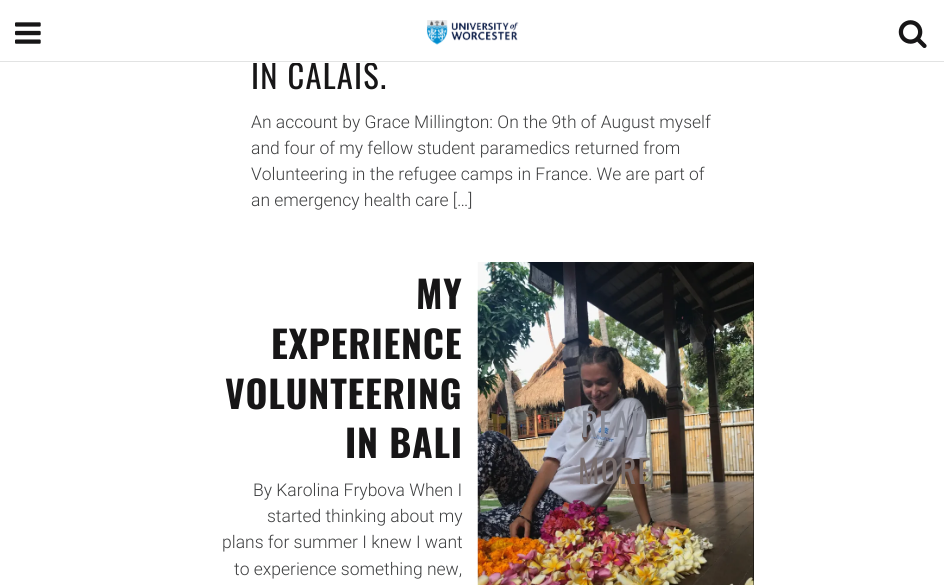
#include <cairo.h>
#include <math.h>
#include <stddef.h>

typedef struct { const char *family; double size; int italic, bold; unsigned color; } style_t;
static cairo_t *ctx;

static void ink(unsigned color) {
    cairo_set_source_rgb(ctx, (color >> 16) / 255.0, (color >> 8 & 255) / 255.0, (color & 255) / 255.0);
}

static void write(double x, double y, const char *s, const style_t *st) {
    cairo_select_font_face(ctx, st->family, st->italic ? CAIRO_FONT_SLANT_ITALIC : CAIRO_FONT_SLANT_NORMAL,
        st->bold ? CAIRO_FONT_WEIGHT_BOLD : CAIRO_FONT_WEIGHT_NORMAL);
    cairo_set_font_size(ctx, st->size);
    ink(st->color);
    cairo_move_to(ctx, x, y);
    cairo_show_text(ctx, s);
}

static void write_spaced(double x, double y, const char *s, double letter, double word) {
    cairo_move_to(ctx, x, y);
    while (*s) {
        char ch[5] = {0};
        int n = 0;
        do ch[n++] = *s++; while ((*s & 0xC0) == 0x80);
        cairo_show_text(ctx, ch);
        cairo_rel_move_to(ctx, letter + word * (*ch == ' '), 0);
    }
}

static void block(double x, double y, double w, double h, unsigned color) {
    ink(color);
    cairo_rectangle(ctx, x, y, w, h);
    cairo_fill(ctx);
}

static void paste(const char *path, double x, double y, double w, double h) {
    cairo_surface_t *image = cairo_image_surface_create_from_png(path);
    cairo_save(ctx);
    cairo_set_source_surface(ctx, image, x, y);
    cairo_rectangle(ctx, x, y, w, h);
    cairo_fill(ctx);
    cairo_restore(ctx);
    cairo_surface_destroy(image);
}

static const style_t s1 = {"Roboto Light", 17.5, 0, 0, 0x3e3f40};

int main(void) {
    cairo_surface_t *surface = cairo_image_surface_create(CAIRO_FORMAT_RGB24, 944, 585);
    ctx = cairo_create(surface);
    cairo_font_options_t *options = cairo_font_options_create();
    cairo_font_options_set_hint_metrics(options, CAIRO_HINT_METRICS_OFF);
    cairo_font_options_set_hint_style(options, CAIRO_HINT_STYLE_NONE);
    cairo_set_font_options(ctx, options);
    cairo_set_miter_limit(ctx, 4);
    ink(0xffffff);
    cairo_paint(ctx);
    cairo_select_font_face(ctx, "Oswald", CAIRO_FONT_SLANT_NORMAL, CAIRO_FONT_WEIGHT_NORMAL);
    cairo_set_font_size(ctx, 32.5);
    ink(0x171617);
    write_spaced(251, 89, "IN CALAIS.", 1.25, 0);
    block(253, 62, 122, 1, 0xffffff);
    block(0, 61, 944, 1, 0xe2e3e3);
    paste("pic1.png", 15, 22, 26, 22);
    paste("pic2.png", 426, 20, 93, 25);
    paste("pic3.png", 898, 20, 29, 28);
    write(251, 128, "An account by Grace Millington: On the 9th of August myself", &s1);
    write(251, 154, "and four of my fellow student paramedics returned from", &s1);
    write(251, 180, "Volunteering in the refugee camps in France. We are part of", &s1);
    write(251, 206, "an emergency health care […]", &s1);
    cairo_select_font_face(ctx, "Oswald", CAIRO_FONT_SLANT_NORMAL, CAIRO_FONT_WEIGHT_BOLD);
    cairo_set_font_size(ctx, 37.5);
    ink(0x171617);
    write_spaced(416, 309, "MY", 0.75, 0);
    write_spaced(271, 359, "EXPERIENCE", 0.75, 0);
    write_spaced(225, 409, "VOLUNTEERING", 0.75, 0);
    write_spaced(345, 458, "IN BALI", 0.75, 0);
    block(753, 263, 1, 322, 0x000000);
    paste("pic4.png", 477, 262, 277, 323);
    cairo_select_font_face(ctx, "Oswald", CAIRO_FONT_SLANT_NORMAL, CAIRO_FONT_WEIGHT_NORMAL);
    cairo_set_font_size(ctx, 32.5);
    ink(0x8a8d98);
    write_spaced(581, 437, "READ", 1.25, 0);
    ink(0x796e6d);
    write_spaced(578, 484, "MORE", 1.25, 0);
    write(253, 496, "By Karolina Frybova When I", &s1);
    write(267, 522, "started thinking about my", &s1);
    write(222, 548, "plans for summer I knew I want", &s1);
    write(234, 575, "to experience something new,", &s1);
    cairo_surface_write_to_png(surface, "screenshot.png");
    cairo_font_options_destroy(options);
    cairo_destroy(ctx);
    cairo_surface_destroy(surface);
    return 0;
}
